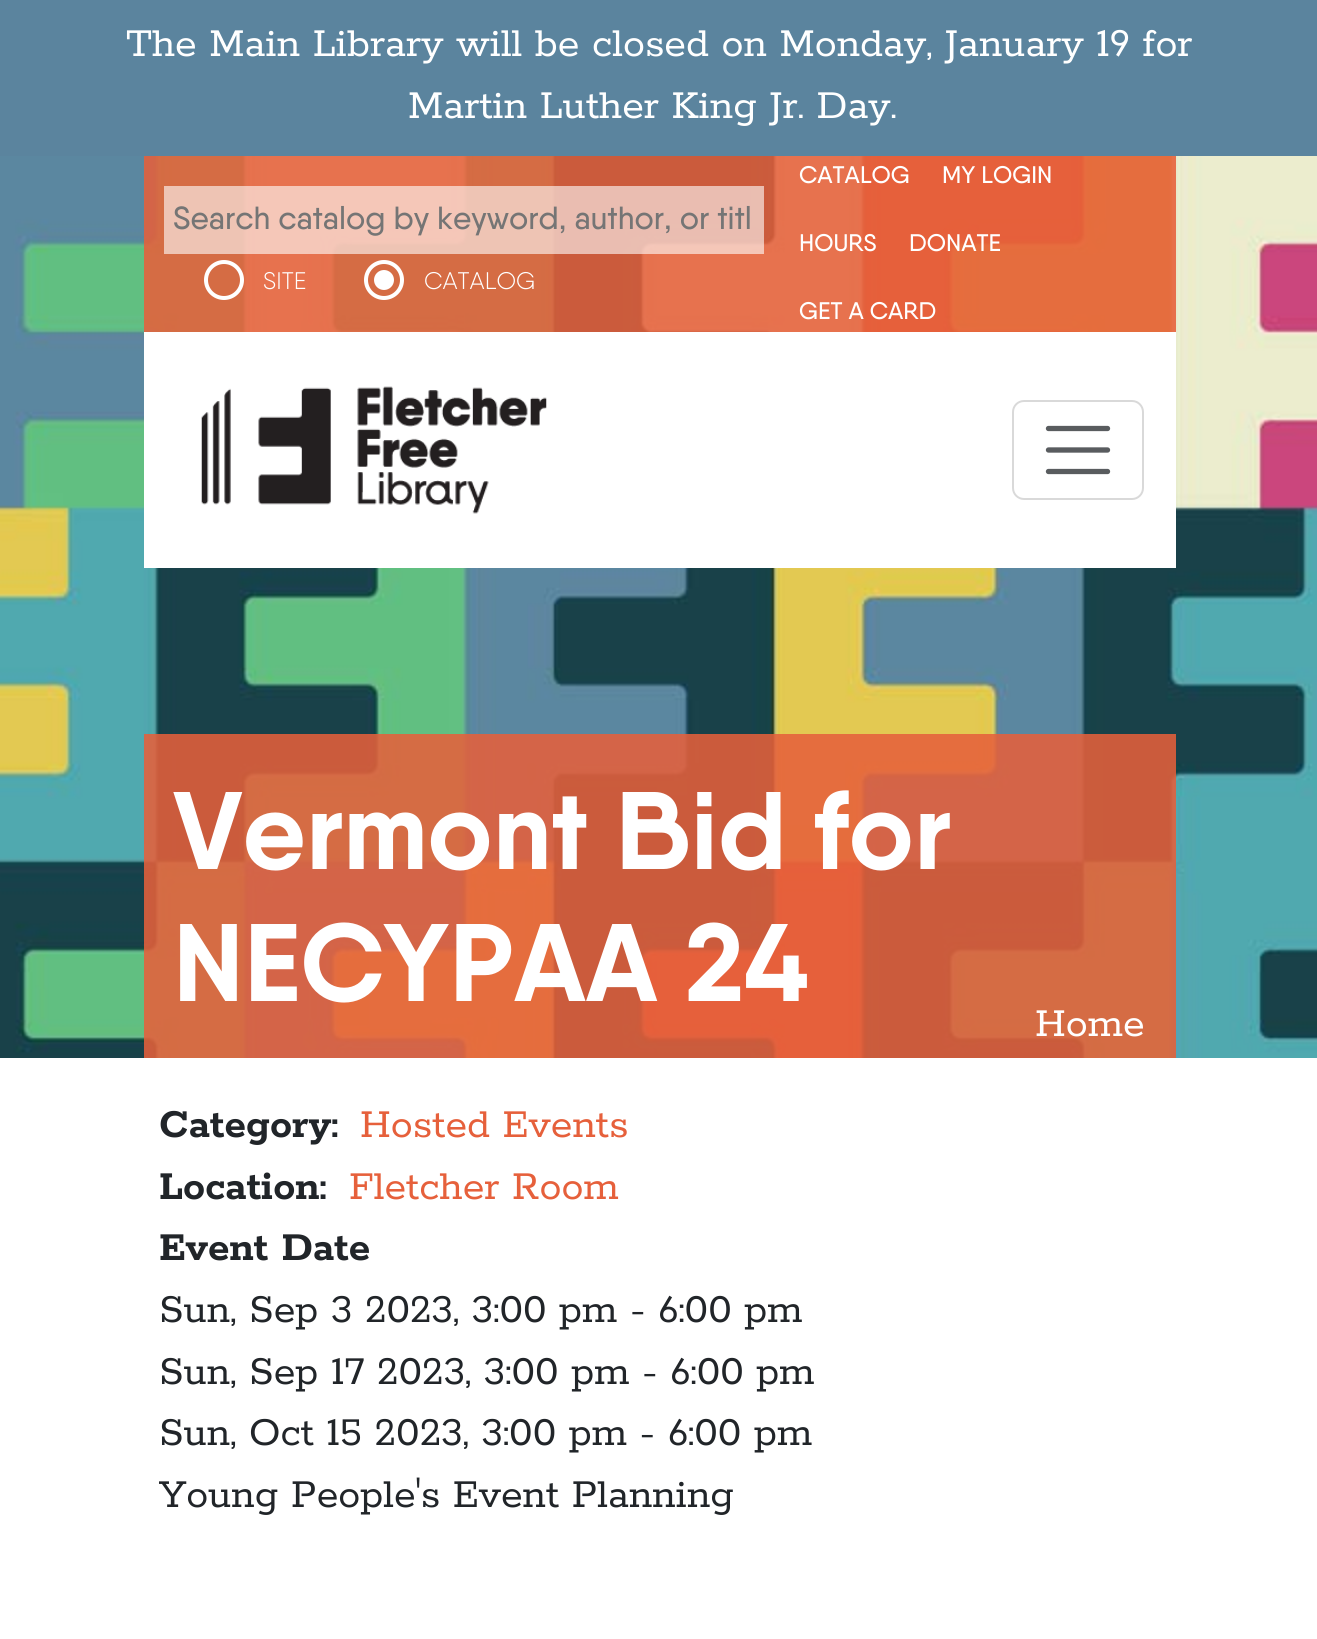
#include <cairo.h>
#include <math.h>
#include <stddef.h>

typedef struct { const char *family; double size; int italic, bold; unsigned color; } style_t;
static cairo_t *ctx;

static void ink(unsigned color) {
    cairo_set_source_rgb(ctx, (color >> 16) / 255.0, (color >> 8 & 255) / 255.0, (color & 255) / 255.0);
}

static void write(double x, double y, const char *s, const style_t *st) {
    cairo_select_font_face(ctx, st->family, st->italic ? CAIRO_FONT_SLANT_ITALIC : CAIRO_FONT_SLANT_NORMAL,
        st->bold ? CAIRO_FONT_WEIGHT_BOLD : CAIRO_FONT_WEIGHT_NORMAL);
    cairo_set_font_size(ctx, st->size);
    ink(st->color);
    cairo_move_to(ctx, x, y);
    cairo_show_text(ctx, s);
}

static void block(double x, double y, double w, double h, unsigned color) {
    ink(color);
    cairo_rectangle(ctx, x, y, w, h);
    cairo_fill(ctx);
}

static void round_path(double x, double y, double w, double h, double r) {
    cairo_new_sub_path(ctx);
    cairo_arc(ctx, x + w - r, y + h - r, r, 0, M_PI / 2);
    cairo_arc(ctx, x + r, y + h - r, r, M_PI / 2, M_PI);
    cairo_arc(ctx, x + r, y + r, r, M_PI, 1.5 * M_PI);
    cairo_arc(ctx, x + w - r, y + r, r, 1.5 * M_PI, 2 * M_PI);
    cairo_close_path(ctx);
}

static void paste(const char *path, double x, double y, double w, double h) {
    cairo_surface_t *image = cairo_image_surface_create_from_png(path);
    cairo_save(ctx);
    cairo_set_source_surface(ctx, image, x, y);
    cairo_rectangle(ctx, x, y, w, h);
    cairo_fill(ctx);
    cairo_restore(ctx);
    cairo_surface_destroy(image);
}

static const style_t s1 = {"Rokkitt", 44, 0, 0, 0xffffff};
static const style_t s2 = {"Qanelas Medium", 32, 0, 0, 0x757575};
static const style_t s3 = {"Qanelas Light", 24, 0, 0, 0xffffff};
static const style_t s4 = {"Qanelas Medium", 24, 0, 0, 0xffffff};
static const style_t s5 = {"Qanelas", 110, 0, 1, 0xffffff};
static const style_t s6 = {"Rokkitt", 44, 0, 1, 0x212529};
static const style_t s7 = {"Rokkitt", 44, 0, 0, 0xe6603b};
static const style_t s8 = {"Rokkitt", 44, 0, 0, 0x212529};

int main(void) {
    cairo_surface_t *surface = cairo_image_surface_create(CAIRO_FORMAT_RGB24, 1317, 1639);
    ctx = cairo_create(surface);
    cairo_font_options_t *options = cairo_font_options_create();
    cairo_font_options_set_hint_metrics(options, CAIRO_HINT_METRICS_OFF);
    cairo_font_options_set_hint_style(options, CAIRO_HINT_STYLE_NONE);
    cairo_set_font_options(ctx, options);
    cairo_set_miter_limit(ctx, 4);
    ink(0xffffff);
    cairo_paint(ctx);
    block(0, 0, 1317, 156, 0x5b849e);
    write(126, 56, "The Main Library will be closed on Monday, January 19 for", &s1);
    write(408, 118, "Martin Luther King Jr. Day.", &s1);
    paste("pic1.png", 0, 156, 1317, 902);
    cairo_set_source_rgba(ctx, 0.902, 0.376, 0.231, 0.87);
    cairo_rectangle(ctx, 144, 156, 1032, 176);
    cairo_fill(ctx);
    cairo_set_source_rgba(ctx, 1, 1, 1, 0.6);
    cairo_rectangle(ctx, 164, 186, 600, 68);
    cairo_fill(ctx);
    write(173, 229, "Search catalog by keyword, author, or titl", &s2);
    cairo_new_path(ctx);
    cairo_arc(ctx, 224, 280, 18, 0, 2 * M_PI);
    ink(0xffffff);
    cairo_set_line_width(ctx, 4);
    cairo_stroke(ctx);
    write(263, 289, "SITE", &s3);
    cairo_new_path(ctx);
    cairo_arc(ctx, 384, 280, 18, 0, 2 * M_PI);
    cairo_stroke(ctx);
    cairo_arc(ctx, 384, 280, 10, 0, 2 * M_PI);
    cairo_fill(ctx);
    write(424, 289, "CATALOG", &s3);
    write(799, 183, "CATALOG", &s4);
    write(942, 183, "MY LOGIN", &s4);
    write(799, 251, "HOURS", &s4);
    write(909, 251, "DONATE", &s4);
    write(799, 319, "GET A CARD", &s4);
    block(144, 332, 1032, 236, 0xffffff);
    paste("pic2.png", 201, 386, 346, 128);
    round_path(1013, 401, 130, 98, 11);
    ink(0xd9d9d9);
    cairo_set_line_width(ctx, 2);
    cairo_stroke(ctx);
    cairo_new_path(ctx);
    cairo_move_to(ctx, 1048.5, 428.5);
    cairo_line_to(ctx, 1107.5, 428.5);
    cairo_move_to(ctx, 1048.5, 450);
    cairo_line_to(ctx, 1107.5, 450);
    cairo_move_to(ctx, 1048.5, 471.5);
    cairo_line_to(ctx, 1107.5, 471.5);
    ink(0x595c5f);
    cairo_set_line_width(ctx, 5.3);
    cairo_set_line_cap(ctx, CAIRO_LINE_CAP_ROUND);
    cairo_stroke(ctx);
    cairo_set_source_rgba(ctx, 0.902, 0.376, 0.231, 0.87);
    cairo_rectangle(ctx, 144, 734, 1032, 324);
    cairo_fill(ctx);
    write(173, 869, "Vermont Bid for", &s5);
    write(173, 1001, "NECYPAA 24", &s5);
    write(1035, 1036, "Home", &s1);
    write(159, 1137, "Category:", &s6);
    write(360, 1137, "Hosted Events", &s7);
    write(159, 1199, "Location:", &s6);
    write(349, 1199, "Fletcher Room", &s7);
    write(159, 1260, "Event Date", &s6);
    write(159, 1322, "Sun, Sep 3 2023, 3:00 pm - 6:00 pm", &s8);
    write(159, 1384, "Sun, Sep 17 2023, 3:00 pm - 6:00 pm", &s8);
    write(159, 1445, "Sun, Oct 15 2023, 3:00 pm - 6:00 pm", &s8);
    write(159, 1507, "Young People's Event Planning", &s8);
    cairo_surface_write_to_png(surface, "screenshot.png");
    cairo_font_options_destroy(options);
    cairo_destroy(ctx);
    cairo_surface_destroy(surface);
    return 0;
}
